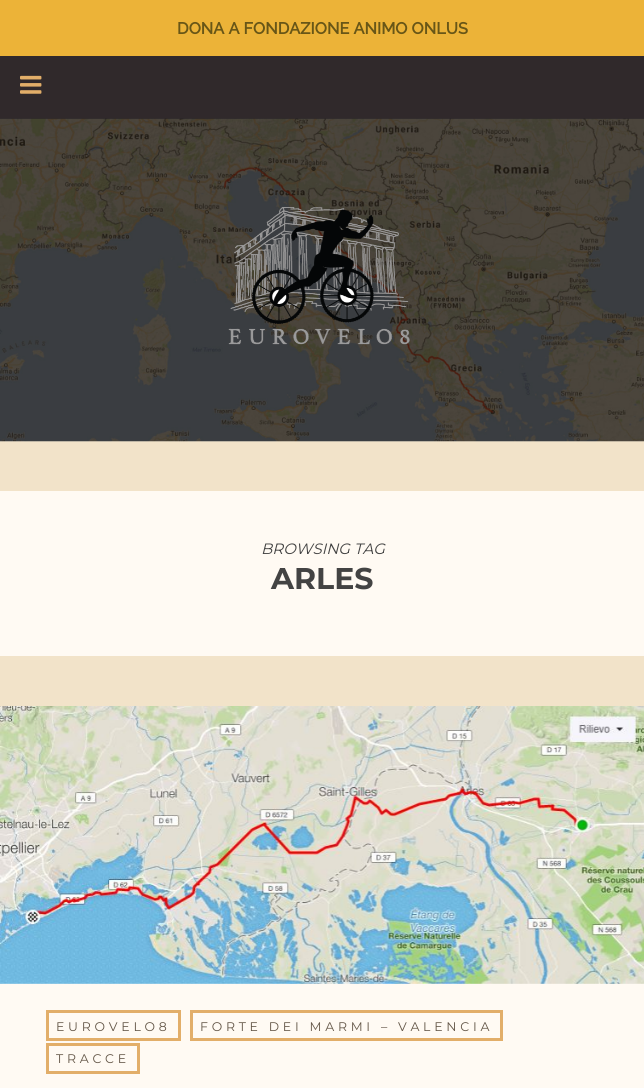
#include <cairo.h>
#include <math.h>
#include <stddef.h>

typedef struct { const char *family; double size; int italic, bold; unsigned color; } style_t;
static cairo_t *ctx;

static void ink(unsigned color) {
    cairo_set_source_rgb(ctx, (color >> 16) / 255.0, (color >> 8 & 255) / 255.0, (color & 255) / 255.0);
}

static void write(double x, double y, const char *s, const style_t *st) {
    cairo_select_font_face(ctx, st->family, st->italic ? CAIRO_FONT_SLANT_ITALIC : CAIRO_FONT_SLANT_NORMAL,
        st->bold ? CAIRO_FONT_WEIGHT_BOLD : CAIRO_FONT_WEIGHT_NORMAL);
    cairo_set_font_size(ctx, st->size);
    ink(st->color);
    cairo_move_to(ctx, x, y);
    cairo_show_text(ctx, s);
}

static void write_spaced(double x, double y, const char *s, double letter, double word) {
    cairo_move_to(ctx, x, y);
    while (*s) {
        char ch[5] = {0};
        int n = 0;
        do ch[n++] = *s++; while ((*s & 0xC0) == 0x80);
        cairo_show_text(ctx, ch);
        cairo_rel_move_to(ctx, letter + word * (*ch == ' '), 0);
    }
}

static void block(double x, double y, double w, double h, unsigned color) {
    ink(color);
    cairo_rectangle(ctx, x, y, w, h);
    cairo_fill(ctx);
}

static void paste(const char *path, double x, double y, double w, double h) {
    cairo_surface_t *image = cairo_image_surface_create_from_png(path);
    cairo_save(ctx);
    cairo_set_source_surface(ctx, image, x, y);
    cairo_rectangle(ctx, x, y, w, h);
    cairo_fill(ctx);
    cairo_restore(ctx);
    cairo_surface_destroy(image);
}

static const style_t s1 = {"Raleway", 16.25, 0, 1, 0x685617};
static const style_t s2 = {"Montserrat", 15, 1, 0, 0x434343};
static const style_t s3 = {"Montserrat", 30, 0, 1, 0x434343};

int main(void) {
    cairo_surface_t *surface = cairo_image_surface_create(CAIRO_FORMAT_RGB24, 644, 1088);
    ctx = cairo_create(surface);
    cairo_font_options_t *options = cairo_font_options_create();
    cairo_font_options_set_hint_metrics(options, CAIRO_HINT_METRICS_OFF);
    cairo_font_options_set_hint_style(options, CAIRO_HINT_STYLE_NONE);
    cairo_set_font_options(ctx, options);
    cairo_set_miter_limit(ctx, 4);
    ink(0xf2e3c9);
    cairo_paint(ctx);
    block(0, 0, 644, 56, 0xecb338);
    write(177, 34, "DONA A FONDAZIONE ANIMO ONLUS", &s1);
    block(0, 56, 644, 63, 0x30292b);
    paste("pic1.png", 20, 75, 22, 19);
    paste("pic2.png", 0, 118, 644, 324);
    paste("pic3.png", 228, 207, 182, 138);
    block(0, 491, 644, 165, 0xfffaf3);
    write(261, 554, "BROWSING TAG", &s2);
    write(271, 589, "ARLES", &s3);
    block(0, 983, 644, 105, 0xfffaf3);
    paste("pic4.png", 0, 706, 644, 278);
    cairo_rectangle(ctx, 47.5, 1011.5, 132, 28);
    ink(0xe2ae69);
    cairo_set_line_width(ctx, 3);
    cairo_stroke(ctx);
    cairo_select_font_face(ctx, "Montserrat", CAIRO_FONT_SLANT_NORMAL, CAIRO_FONT_WEIGHT_NORMAL);
    cairo_set_font_size(ctx, 12.5);
    ink(0x635647);
    write_spaced(56, 1031, "EUROVELO8", 3.75, 0);
    cairo_rectangle(ctx, 191.5, 1011.5, 310, 28);
    ink(0xe2ae69);
    cairo_stroke(ctx);
    ink(0x635647);
    write_spaced(200, 1031, "FORTE DEI MARMI – VALENCIA", 3.75, 0);
    cairo_rectangle(ctx, 47.5, 1044.5, 91, 28);
    ink(0xe2ae69);
    cairo_stroke(ctx);
    ink(0x635647);
    write_spaced(56, 1063, "TRACCE", 3.75, 0);
    cairo_surface_write_to_png(surface, "screenshot.png");
    cairo_font_options_destroy(options);
    cairo_destroy(ctx);
    cairo_surface_destroy(surface);
    return 0;
}
